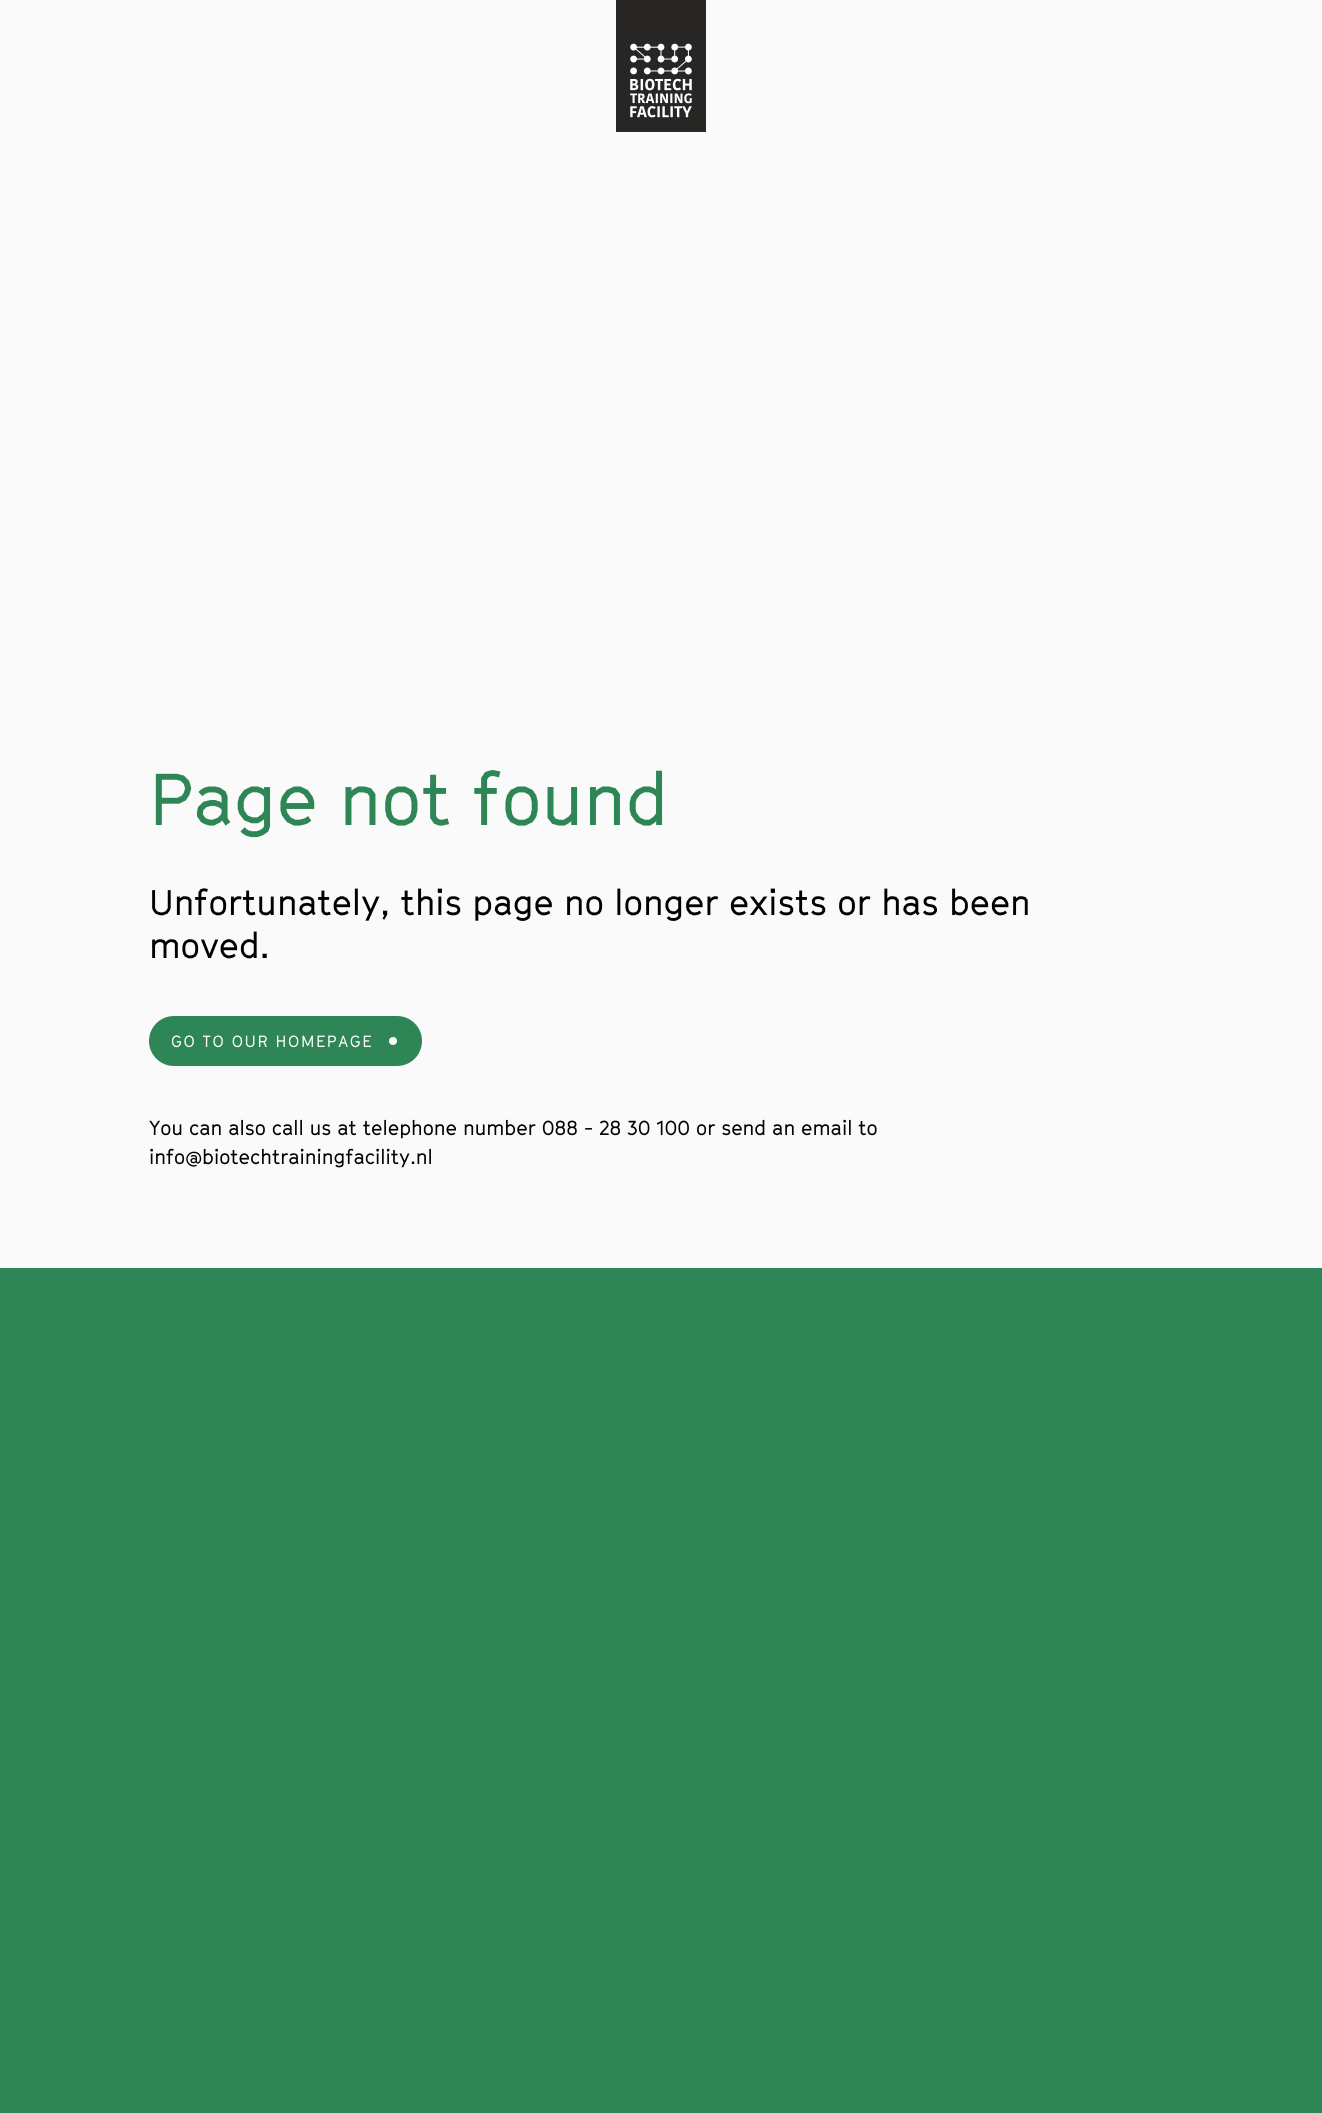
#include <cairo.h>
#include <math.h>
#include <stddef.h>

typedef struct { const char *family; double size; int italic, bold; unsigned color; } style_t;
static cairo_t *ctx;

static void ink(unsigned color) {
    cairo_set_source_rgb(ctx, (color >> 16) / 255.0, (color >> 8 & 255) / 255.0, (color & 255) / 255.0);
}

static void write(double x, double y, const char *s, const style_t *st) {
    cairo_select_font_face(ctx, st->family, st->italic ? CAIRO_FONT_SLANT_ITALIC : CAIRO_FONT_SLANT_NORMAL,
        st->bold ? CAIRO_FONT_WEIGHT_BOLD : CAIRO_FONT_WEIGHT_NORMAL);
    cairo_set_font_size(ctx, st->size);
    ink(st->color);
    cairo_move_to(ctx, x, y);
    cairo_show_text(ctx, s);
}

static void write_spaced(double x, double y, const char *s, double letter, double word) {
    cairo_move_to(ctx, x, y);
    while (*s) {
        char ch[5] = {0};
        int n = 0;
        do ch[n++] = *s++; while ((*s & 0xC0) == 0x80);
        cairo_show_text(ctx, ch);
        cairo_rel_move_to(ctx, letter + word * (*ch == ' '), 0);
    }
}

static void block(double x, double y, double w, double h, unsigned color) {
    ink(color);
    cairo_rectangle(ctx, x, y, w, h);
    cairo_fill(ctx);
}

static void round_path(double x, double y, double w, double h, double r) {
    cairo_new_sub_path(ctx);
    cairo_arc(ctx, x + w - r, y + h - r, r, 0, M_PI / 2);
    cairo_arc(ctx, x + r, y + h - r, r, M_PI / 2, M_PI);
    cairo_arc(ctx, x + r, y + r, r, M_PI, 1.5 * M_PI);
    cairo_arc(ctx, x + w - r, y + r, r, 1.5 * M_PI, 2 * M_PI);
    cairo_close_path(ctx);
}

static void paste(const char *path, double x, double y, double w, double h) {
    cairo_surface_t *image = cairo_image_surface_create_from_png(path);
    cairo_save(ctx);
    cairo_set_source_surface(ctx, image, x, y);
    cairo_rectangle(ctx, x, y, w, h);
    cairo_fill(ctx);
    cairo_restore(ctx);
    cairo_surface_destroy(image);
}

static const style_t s1 = {"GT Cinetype", 72, 0, 0, 0x2e8555};
static const style_t s2 = {"GT Cinetype", 35, 0, 0, 0x000000};
static const style_t s3 = {"GT Cinetype", 20, 0, 0, 0x000000};

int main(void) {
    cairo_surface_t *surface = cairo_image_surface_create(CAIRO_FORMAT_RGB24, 1322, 2113);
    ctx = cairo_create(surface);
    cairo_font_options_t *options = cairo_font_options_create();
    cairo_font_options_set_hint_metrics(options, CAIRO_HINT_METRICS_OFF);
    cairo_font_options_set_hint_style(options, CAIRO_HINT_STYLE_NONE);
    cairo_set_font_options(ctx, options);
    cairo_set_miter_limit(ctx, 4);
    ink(0x2e8555);
    cairo_paint(ctx);
    block(0, 0, 1322, 1268, 0xfafafa);
    block(616, 131, 90, 1, 0x2b2b2b);
    paste("pic1.png", 616, 0, 90, 131);
    write(149, 825, "Page not found", &s1);
    write(149, 915, "Unfortunately, this page no longer exists or has been", &s2);
    write(149, 958, "moved.", &s2);
    ink(0x2e8555);
    round_path(149, 1016, 273, 50, 25);
    cairo_fill(ctx);
    cairo_set_font_size(ctx, 16);
    ink(0xffffff);
    write_spaced(171, 1047, "GO TO OUR HOMEPAGE", 1.6, 0);
    cairo_new_path(ctx);
    cairo_arc(ctx, 393, 1041, 4, 0, 2 * M_PI);
    cairo_fill(ctx);
    write(149, 1135, "You can also call us at telephone number 088 - 28 30 100 or send an email to", &s3);
    write(149, 1164, "info@biotechtrainingfacility.nl", &s3);
    cairo_surface_write_to_png(surface, "screenshot.png");
    cairo_font_options_destroy(options);
    cairo_destroy(ctx);
    cairo_surface_destroy(surface);
    return 0;
}
